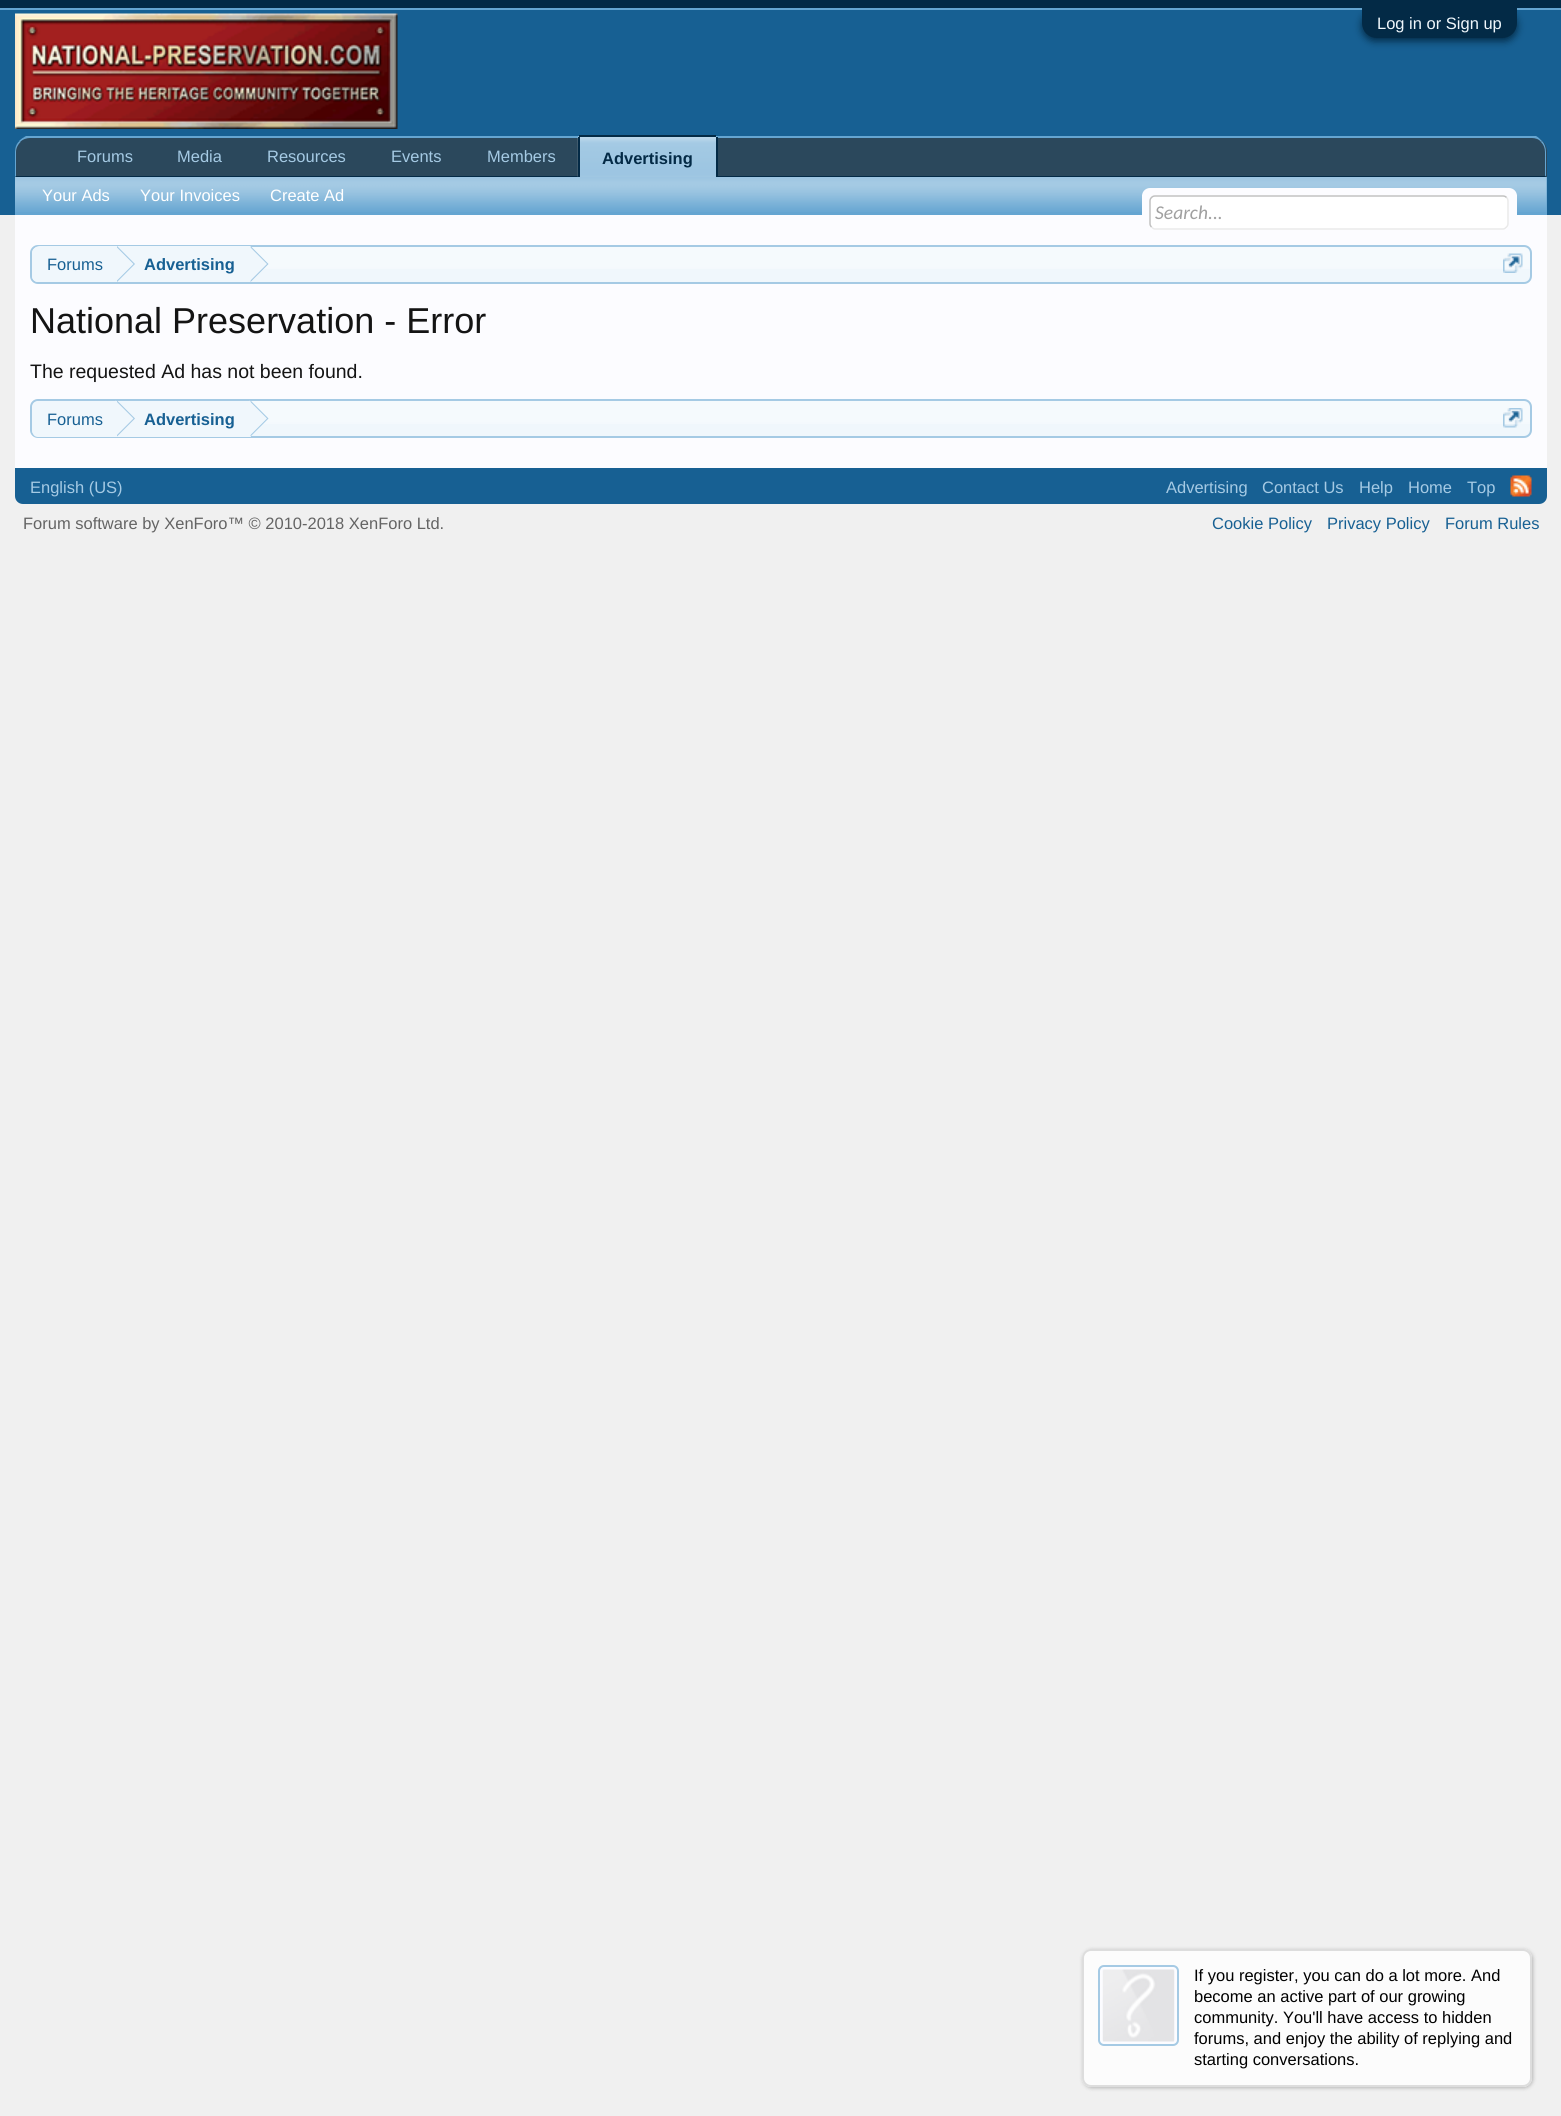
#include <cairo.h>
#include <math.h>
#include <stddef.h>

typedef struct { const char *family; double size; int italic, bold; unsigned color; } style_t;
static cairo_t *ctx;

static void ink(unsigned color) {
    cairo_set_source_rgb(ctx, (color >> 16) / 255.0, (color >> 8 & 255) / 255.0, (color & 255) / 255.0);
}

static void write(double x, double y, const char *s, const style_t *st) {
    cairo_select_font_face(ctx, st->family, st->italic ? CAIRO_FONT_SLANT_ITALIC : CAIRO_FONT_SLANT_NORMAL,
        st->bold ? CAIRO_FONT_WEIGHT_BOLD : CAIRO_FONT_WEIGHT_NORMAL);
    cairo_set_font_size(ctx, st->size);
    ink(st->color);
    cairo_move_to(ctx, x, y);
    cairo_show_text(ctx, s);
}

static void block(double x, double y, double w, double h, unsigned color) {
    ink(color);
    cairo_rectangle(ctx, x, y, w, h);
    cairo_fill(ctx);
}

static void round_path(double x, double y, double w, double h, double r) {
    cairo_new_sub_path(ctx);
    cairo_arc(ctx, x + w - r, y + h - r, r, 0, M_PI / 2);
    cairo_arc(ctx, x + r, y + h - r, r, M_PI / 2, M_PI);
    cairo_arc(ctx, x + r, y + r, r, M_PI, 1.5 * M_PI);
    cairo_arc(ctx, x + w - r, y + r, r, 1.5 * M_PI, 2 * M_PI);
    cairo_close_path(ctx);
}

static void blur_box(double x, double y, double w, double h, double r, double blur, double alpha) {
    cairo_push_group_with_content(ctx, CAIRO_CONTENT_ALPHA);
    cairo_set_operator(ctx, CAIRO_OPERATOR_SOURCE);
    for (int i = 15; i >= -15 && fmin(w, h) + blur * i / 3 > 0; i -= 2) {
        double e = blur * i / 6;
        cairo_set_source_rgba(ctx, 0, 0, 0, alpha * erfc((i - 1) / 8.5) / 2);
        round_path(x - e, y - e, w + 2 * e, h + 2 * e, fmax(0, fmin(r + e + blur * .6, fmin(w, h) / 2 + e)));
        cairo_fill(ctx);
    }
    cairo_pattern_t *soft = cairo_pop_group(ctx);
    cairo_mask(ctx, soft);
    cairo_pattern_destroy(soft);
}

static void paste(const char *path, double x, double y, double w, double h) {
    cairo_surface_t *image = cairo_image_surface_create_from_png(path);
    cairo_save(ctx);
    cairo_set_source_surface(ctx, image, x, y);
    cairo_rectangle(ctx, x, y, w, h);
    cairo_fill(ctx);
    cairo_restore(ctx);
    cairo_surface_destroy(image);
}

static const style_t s1 = {"Liberation Sans", 16.5, 0, 0, 0xf0f7fc};
static const style_t s2 = {"Liberation Sans", 16.5, 0, 0, 0xa5cae4};
static const style_t s3 = {"Liberation Sans", 16.5, 0, 1, 0x032a46};
static const style_t s4 = {"Liberation Sans", 16.5, 0, 0, 0xffffff};
static const style_t s5 = {"Carlito", 19.5, 1, 0, 0xa0a0a0};
static const style_t s6 = {"Liberation Sans", 16.5, 0, 0, 0x176093};
static const style_t s7 = {"Liberation Sans", 16.5, 0, 1, 0x176093};
static const style_t s8 = {"Liberation Sans", 36, 0, 0, 0x141414};
static const style_t s9 = {"Liberation Sans", 19.5, 0, 0, 0x141414};
static const style_t s10 = {"Liberation Sans", 16.5, 0, 0, 0x000000};
static const style_t s11 = {"Liberation Sans", 16.5, 0, 0, 0x646464};

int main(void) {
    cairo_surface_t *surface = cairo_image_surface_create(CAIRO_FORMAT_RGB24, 1561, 2116);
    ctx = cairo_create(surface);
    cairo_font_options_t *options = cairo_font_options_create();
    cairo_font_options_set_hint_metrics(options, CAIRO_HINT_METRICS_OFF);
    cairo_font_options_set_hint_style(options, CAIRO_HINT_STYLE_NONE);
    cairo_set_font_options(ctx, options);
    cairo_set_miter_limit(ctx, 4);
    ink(0xf0f0f0);
    cairo_paint(ctx);
    block(0, 0, 1561, 8, 0x032a46);
    block(0, 8, 1561, 2, 0x65a5d1);
    block(0, 10, 1561, 205, 0x176093);
    ink(0x032a46);
    blur_box(1362, 11, 155, 30, 15, 4, 1);
    ink(0x032a46);
    cairo_new_path(ctx);
    cairo_move_to(ctx, 1362, 8);
    cairo_line_to(ctx, 1517, 8);
    cairo_line_to(ctx, 1517, 23);
    cairo_curve_to(ctx, 1517, 31.5, 1510.5, 38, 1502, 38);
    cairo_line_to(ctx, 1377, 38);
    cairo_curve_to(ctx, 1368.5, 38, 1362, 31.5, 1362, 23);
    cairo_close_path(ctx);
    cairo_fill(ctx);
    write(1377, 29, "Log in or Sign up", &s1);
    paste("pic1.png", 15, 13, 383, 116);
    ink(0x2b485c);
    cairo_new_path(ctx);
    cairo_move_to(ctx, 30, 137);
    cairo_line_to(ctx, 1532, 137);
    cairo_curve_to(ctx, 1540.5, 137, 1547, 143.5, 1547, 152);
    cairo_line_to(ctx, 1547, 177);
    cairo_line_to(ctx, 15, 177);
    cairo_line_to(ctx, 15, 152);
    cairo_curve_to(ctx, 15, 143.5, 21.5, 137, 30, 137);
    cairo_close_path(ctx);
    cairo_fill(ctx);
    ink(0x65a5d1);
    cairo_new_path(ctx);
    cairo_move_to(ctx, 30, 138);
    cairo_curve_to(ctx, 27, 138, 23, 139, 20, 142);
    cairo_line_to(ctx, 19, 141);
    cairo_curve_to(ctx, 21, 139, 24, 137, 26, 136);
    cairo_line_to(ctx, 1536, 136);
    cairo_curve_to(ctx, 1538, 137, 1540, 139, 1542, 141);
    cairo_line_to(ctx, 1541, 142);
    cairo_curve_to(ctx, 1539, 139, 1535, 138, 1532, 138);
    cairo_close_path(ctx);
    cairo_fill(ctx);
    cairo_new_path(ctx);
    cairo_move_to(ctx, 1542, 141);
    cairo_curve_to(ctx, 1544.5, 143.5, 1546, 147.5, 1546, 152);
    cairo_line_to(ctx, 1546, 176.5);
    cairo_line_to(ctx, 1545, 175.5);
    cairo_line_to(ctx, 1545, 152);
    cairo_curve_to(ctx, 1545, 148, 1543.5, 144.5, 1541, 142);
    cairo_close_path(ctx);
    cairo_fill(ctx);
    ink(0x032a46);
    cairo_new_path(ctx);
    cairo_move_to(ctx, 1546, 177);
    cairo_line_to(ctx, 1545, 176);
    cairo_line_to(ctx, 16, 176);
    cairo_line_to(ctx, 15, 177);
    cairo_close_path(ctx);
    cairo_fill(ctx);
    ink(0x65a5d1);
    cairo_new_path(ctx);
    cairo_move_to(ctx, 15, 177);
    cairo_line_to(ctx, 16, 176);
    cairo_line_to(ctx, 16, 152);
    cairo_curve_to(ctx, 16, 148, 18, 144.5, 20.5, 142);
    cairo_line_to(ctx, 19.5, 141);
    cairo_curve_to(ctx, 16.5, 143.5, 15, 147.5, 15, 152);
    cairo_close_path(ctx);
    cairo_fill(ctx);
    write(77, 162, "Forums", &s2);
    write(177, 162, "Media", &s2);
    write(267, 162, "Resources", &s2);
    write(391, 162, "Events", &s2);
    write(487, 162, "Members", &s2);
    ink(0x65a5d1);
    cairo_new_path(ctx);
    cairo_move_to(ctx, 581, 135);
    cairo_line_to(ctx, 714, 135);
    cairo_curve_to(ctx, 715.5, 135, 717, 136.5, 717, 138);
    cairo_line_to(ctx, 717, 177);
    cairo_line_to(ctx, 578, 177);
    cairo_line_to(ctx, 578, 138);
    cairo_curve_to(ctx, 578, 136.5, 579.5, 135, 581, 135);
    cairo_close_path(ctx);
    cairo_fill(ctx);
    paste("pic2.png", 577, 136, 140, 41);
    block(579, 135, 137, 2, 0x032a46);
    block(716, 137, 2, 40, 0x032a46);
    block(578, 137, 2, 40, 0x032a46);
    write(602, 164, "Advertising", &s3);
    block(15, 177, 1532, 38, 0x65a5d1);
    paste("pic3.png", 15, 177, 1532, 35);
    write(42, 201, "Your Ads", &s4);
    write(140, 201, "Your Invoices", &s4);
    write(270, 201, "Create Ad", &s4);
    block(15, 215, 1532, 253, 0xfcfcff);
    round_path(1142, 188, 375, 42, 8);
    cairo_fill(ctx);
    block(1142, 195, 375, 1, 0xfcfcff);
    ink(0xffffff);
    round_path(1149, 195, 360, 35, 6);
    cairo_fill(ctx);
    cairo_new_path(ctx);
    cairo_move_to(ctx, 1506.5, 197.5);
    cairo_curve_to(ctx, 1507.5, 198.5, 1508, 199.5, 1508, 201);
    cairo_line_to(ctx, 1508, 223.5);
    cairo_curve_to(ctx, 1508, 225, 1507.5, 226, 1506.5, 227);
    cairo_curve_to(ctx, 1505.5, 228, 1504.5, 229, 1503, 229);
    cairo_line_to(ctx, 1155, 229);
    cairo_curve_to(ctx, 1153.5, 229, 1152.5, 228, 1151.5, 227);
    ink(0xe9e9e9);
    cairo_set_line_width(ctx, 1.5);
    cairo_stroke(ctx);
    cairo_new_path(ctx);
    cairo_move_to(ctx, 1151.5, 227);
    cairo_curve_to(ctx, 1150.5, 226, 1150, 225, 1150, 223.5);
    cairo_line_to(ctx, 1150, 201);
    cairo_curve_to(ctx, 1150, 199.5, 1150.5, 198.5, 1151.5, 197.5);
    cairo_curve_to(ctx, 1152.5, 196.5, 1153.5, 196, 1155, 196);
    cairo_line_to(ctx, 1503, 196);
    cairo_curve_to(ctx, 1504.5, 196, 1505.5, 196.5, 1506.5, 197.5);
    ink(0xc0c0c0);
    cairo_stroke(ctx);
    write(1155, 219, "Search...", &s5);
    ink(0xf0f7fc);
    round_path(30, 245, 1502, 39, 8);
    cairo_fill(ctx);
    paste("pic4.png", 30, 246, 1501, 23);
    round_path(31, 246, 1500, 37, 7);
    ink(0xa5cae4);
    cairo_set_line_width(ctx, 2);
    cairo_stroke(ctx);
    cairo_save(ctx);
    round_path(32, 246, 1498, 36, 6);
    cairo_clip(ctx);
    ink(0xf0f7fc);
    cairo_new_path(ctx);
    cairo_move_to(ctx, 40, 246);
    cairo_line_to(ctx, 117, 246);
    cairo_line_to(ctx, 117, 284);
    cairo_line_to(ctx, 40, 284);
    cairo_curve_to(ctx, 35.5, 284, 32, 280.5, 32, 276);
    cairo_line_to(ctx, 32, 254);
    cairo_curve_to(ctx, 32, 249.5, 35.5, 246, 40, 246);
    cairo_close_path(ctx);
    cairo_fill(ctx);
    cairo_restore(ctx);
    write(47, 270, "Forums", &s6);
    block(117, 246, 134, 23, 0xf0f7fc);
    ink(0xa5cae4);
    cairo_new_path(ctx);
    cairo_move_to(ctx, 117, 282);
    cairo_line_to(ctx, 117, 246);
    cairo_line_to(ctx, 135, 264);
    cairo_close_path(ctx);
    cairo_fill(ctx);
    ink(0xf0f7fc);
    cairo_new_path(ctx);
    cairo_move_to(ctx, 115.5, 282);
    cairo_line_to(ctx, 115.5, 246);
    cairo_line_to(ctx, 133.5, 264);
    cairo_close_path(ctx);
    cairo_fill(ctx);
    write(144, 270, "Advertising", &s7);
    ink(0xa5cae4);
    cairo_new_path(ctx);
    cairo_move_to(ctx, 250.5, 282);
    cairo_line_to(ctx, 250.5, 246);
    cairo_line_to(ctx, 268.5, 264);
    cairo_close_path(ctx);
    cairo_fill(ctx);
    ink(0xf0f7fc);
    cairo_new_path(ctx);
    cairo_move_to(ctx, 249, 282);
    cairo_line_to(ctx, 249, 246);
    cairo_line_to(ctx, 267, 264);
    cairo_close_path(ctx);
    cairo_fill(ctx);
    paste("pic5.png", 1503, 253, 20, 20);
    write(30, 333, "National Preservation - Error", &s8);
    write(30, 378, "The requested Ad has not been found.", &s9);
    ink(0xf0f7fc);
    round_path(30, 399, 1502, 39, 8);
    cairo_fill(ctx);
    paste("pic6.png", 30, 401, 1501, 23);
    round_path(31, 400, 1500, 37, 7);
    ink(0xa5cae4);
    cairo_stroke(ctx);
    cairo_save(ctx);
    round_path(32, 401, 1498, 36, 6);
    cairo_clip(ctx);
    ink(0xf0f7fc);
    cairo_new_path(ctx);
    cairo_move_to(ctx, 40, 401);
    cairo_line_to(ctx, 117, 401);
    cairo_line_to(ctx, 117, 438);
    cairo_line_to(ctx, 40, 438);
    cairo_curve_to(ctx, 35.5, 438, 32, 434.5, 32, 430);
    cairo_line_to(ctx, 32, 409);
    cairo_curve_to(ctx, 32, 404.5, 35.5, 401, 40, 401);
    cairo_close_path(ctx);
    cairo_fill(ctx);
    cairo_restore(ctx);
    write(47, 425, "Forums", &s6);
    block(117, 401, 134, 36, 0xf0f7fc);
    ink(0xa5cae4);
    cairo_new_path(ctx);
    cairo_move_to(ctx, 117, 436.5);
    cairo_line_to(ctx, 117, 400.5);
    cairo_line_to(ctx, 135, 418.5);
    cairo_close_path(ctx);
    cairo_fill(ctx);
    ink(0xf0f7fc);
    cairo_new_path(ctx);
    cairo_move_to(ctx, 115.5, 436.5);
    cairo_line_to(ctx, 115.5, 400.5);
    cairo_line_to(ctx, 133.5, 418.5);
    cairo_close_path(ctx);
    cairo_fill(ctx);
    write(144, 425, "Advertising", &s7);
    ink(0xa5cae4);
    cairo_new_path(ctx);
    cairo_move_to(ctx, 250.5, 436.5);
    cairo_line_to(ctx, 250.5, 400.5);
    cairo_line_to(ctx, 268.5, 418.5);
    cairo_close_path(ctx);
    cairo_fill(ctx);
    ink(0xf0f7fc);
    cairo_new_path(ctx);
    cairo_move_to(ctx, 249, 436.5);
    cairo_line_to(ctx, 249, 400.5);
    cairo_line_to(ctx, 267, 418.5);
    cairo_close_path(ctx);
    cairo_fill(ctx);
    paste("pic7.png", 1503, 408, 20, 20);
    cairo_save(ctx);
    cairo_set_fill_rule(ctx, CAIRO_FILL_RULE_EVEN_ODD);
    cairo_new_path(ctx);
    cairo_move_to(ctx, 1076, 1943);
    cairo_line_to(ctx, 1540, 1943);
    cairo_line_to(ctx, 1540, 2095);
    cairo_line_to(ctx, 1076, 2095);
    cairo_close_path(ctx);
    cairo_move_to(ctx, 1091, 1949);
    cairo_line_to(ctx, 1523, 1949);
    cairo_curve_to(ctx, 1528, 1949, 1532, 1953, 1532, 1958);
    cairo_line_to(ctx, 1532, 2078);
    cairo_curve_to(ctx, 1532, 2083, 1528, 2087, 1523, 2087);
    cairo_line_to(ctx, 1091, 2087);
    cairo_curve_to(ctx, 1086, 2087, 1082, 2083, 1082, 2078);
    cairo_line_to(ctx, 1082, 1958);
    cairo_curve_to(ctx, 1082, 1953, 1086, 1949, 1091, 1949);
    cairo_close_path(ctx);
    cairo_clip(ctx);
    ink(0x000000);
    blur_box(1083, 1950, 450, 138, 9, 2, 0.25);
    cairo_restore(ctx);
    cairo_set_source_rgba(ctx, 1, 1, 1, 0.8);
    round_path(1083, 1950, 448, 136, 8);
    cairo_fill_preserve(ctx);
    ink(0xdddddd);
    cairo_stroke(ctx);
    ink(0xfcfcff);
    round_path(1099, 1966, 79, 79, 5);
    cairo_fill_preserve(ctx);
    ink(0xa5cae4);
    cairo_stroke(ctx);
    paste("pic8.png", 1102, 1969, 73, 73);
    write(1194, 1981, "If you register, you can do a lot more. And", &s10);
    write(1194, 2002, "become an active part of our growing", &s10);
    write(1194, 2023, "community. You'll have access to hidden", &s10);
    write(1194, 2044, "forums, and enjoy the ability of replying and", &s10);
    write(1194, 2065, "starting conversations.", &s10);
    ink(0x176093);
    cairo_new_path(ctx);
    cairo_move_to(ctx, 15, 468);
    cairo_line_to(ctx, 1547, 468);
    cairo_line_to(ctx, 1547, 496);
    cairo_curve_to(ctx, 1547, 500.5, 1543.5, 504, 1539, 504);
    cairo_line_to(ctx, 23, 504);
    cairo_curve_to(ctx, 18.5, 504, 15, 500.5, 15, 496);
    cairo_close_path(ctx);
    cairo_fill(ctx);
    write(30, 493, "English (US)", &s2);
    write(1166, 493, "Advertising", &s2);
    write(1262, 493, "Contact Us", &s2);
    write(1359, 493, "Help", &s2);
    write(1408, 493, "Home", &s2);
    write(1467, 493, "Top", &s2);
    paste("pic9.png", 1510, 475, 22, 22);
    write(23, 529, "Forum software by XenForo™ © 2010-2018 XenForo Ltd.", &s11);
    write(1212, 529, "Cookie Policy", &s6);
    write(1327, 529, "Privacy Policy", &s6);
    write(1445, 529, "Forum Rules", &s6);
    cairo_surface_write_to_png(surface, "screenshot.png");
    cairo_font_options_destroy(options);
    cairo_destroy(ctx);
    cairo_surface_destroy(surface);
    return 0;
}
